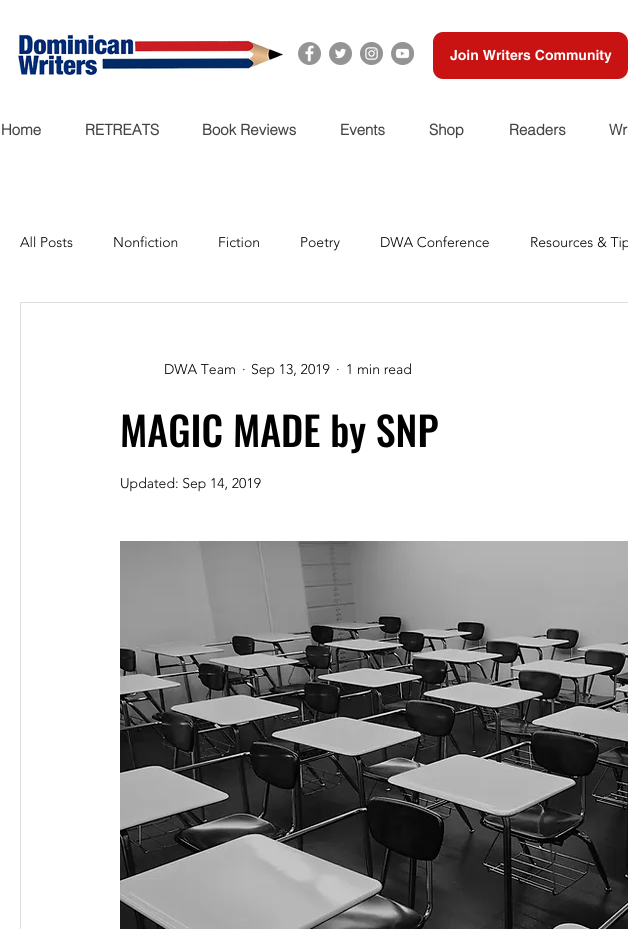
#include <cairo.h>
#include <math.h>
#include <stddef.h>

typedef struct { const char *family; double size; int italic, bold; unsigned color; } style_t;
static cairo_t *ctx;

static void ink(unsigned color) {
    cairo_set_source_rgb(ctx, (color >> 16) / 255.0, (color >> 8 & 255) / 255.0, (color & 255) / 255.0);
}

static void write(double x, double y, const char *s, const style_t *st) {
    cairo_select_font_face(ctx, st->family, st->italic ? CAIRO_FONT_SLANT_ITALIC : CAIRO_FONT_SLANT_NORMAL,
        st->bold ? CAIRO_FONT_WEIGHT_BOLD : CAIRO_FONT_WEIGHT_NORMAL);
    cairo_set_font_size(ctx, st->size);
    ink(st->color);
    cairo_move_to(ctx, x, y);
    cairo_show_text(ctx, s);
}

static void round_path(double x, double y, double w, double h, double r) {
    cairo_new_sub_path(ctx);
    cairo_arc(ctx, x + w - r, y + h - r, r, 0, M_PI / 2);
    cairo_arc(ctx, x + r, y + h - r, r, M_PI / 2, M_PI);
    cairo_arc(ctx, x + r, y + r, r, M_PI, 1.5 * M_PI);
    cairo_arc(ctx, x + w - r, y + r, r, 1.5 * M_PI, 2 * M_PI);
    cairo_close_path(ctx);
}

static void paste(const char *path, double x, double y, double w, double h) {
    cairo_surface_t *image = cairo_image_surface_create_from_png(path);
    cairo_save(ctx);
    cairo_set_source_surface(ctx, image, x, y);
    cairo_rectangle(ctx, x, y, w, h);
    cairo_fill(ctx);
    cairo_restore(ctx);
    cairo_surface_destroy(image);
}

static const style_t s1 = {"helvetica", 14, 0, 1, 0xffffff};
static const style_t s2 = {"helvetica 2", 15, 0, 1, 0x444444};
static const style_t s3 = {"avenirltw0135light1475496 Light", 14, 0, 0, 0x000000};
static const style_t s4 = {"Oswald Medium", 40, 0, 0, 0x000000};

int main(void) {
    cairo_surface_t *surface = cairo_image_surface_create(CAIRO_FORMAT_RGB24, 628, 929);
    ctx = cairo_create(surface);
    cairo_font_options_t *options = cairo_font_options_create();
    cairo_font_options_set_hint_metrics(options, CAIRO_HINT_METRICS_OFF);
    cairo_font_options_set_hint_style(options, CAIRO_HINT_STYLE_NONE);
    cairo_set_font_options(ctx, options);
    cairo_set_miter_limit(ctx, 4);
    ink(0xffffff);
    cairo_paint(ctx);
    paste("pic1.png", 18, 34, 265, 41);
    paste("pic2.png", 298, 42, 23, 23);
    paste("pic3.png", 329, 42, 23, 23);
    paste("pic4.png", 360, 42, 23, 23);
    paste("pic5.png", 391, 42, 23, 23);
    ink(0xc91212);
    round_path(433, 32, 195, 47, 10);
    cairo_fill(ctx);
    write(450, 60, "Join Writers Community", &s1);
    write(1, 135, "Home", &s2);
    write(85, 135, "RETREATS", &s2);
    write(202, 135, "Book Reviews", &s2);
    write(340, 135, "Events", &s2);
    write(429, 135, "Shop", &s2);
    write(509, 135, "Readers", &s2);
    write(609, 135, "Wr", &s2);
    write(20, 247, "All Posts", &s3);
    write(113, 247, "Nonfiction", &s3);
    write(218, 247, "Fiction", &s3);
    write(300, 247, "Poetry", &s3);
    write(380, 247, "DWA Conference", &s3);
    write(530, 247, "Resources & Tip", &s3);
    cairo_rectangle(ctx, 20.5, 302.5, 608, 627);
    ink(0xdfdfdf);
    cairo_set_line_width(ctx, 1);
    cairo_stroke(ctx);
    write(164, 374, "DWA Team", &s3);
    write(242, 374, "·", &s3);
    write(251, 374, "Sep 13, 2019", &s3);
    write(336, 374, "·", &s3);
    write(346, 374, "1 min read", &s3);
    write(120, 447, "MAGIC MADE by SNP", &s4);
    write(120, 488, "Updated: Sep 14, 2019", &s3);
    paste("pic6.png", 120, 541, 508, 388);
    cairo_surface_write_to_png(surface, "screenshot.png");
    cairo_font_options_destroy(options);
    cairo_destroy(ctx);
    cairo_surface_destroy(surface);
    return 0;
}
